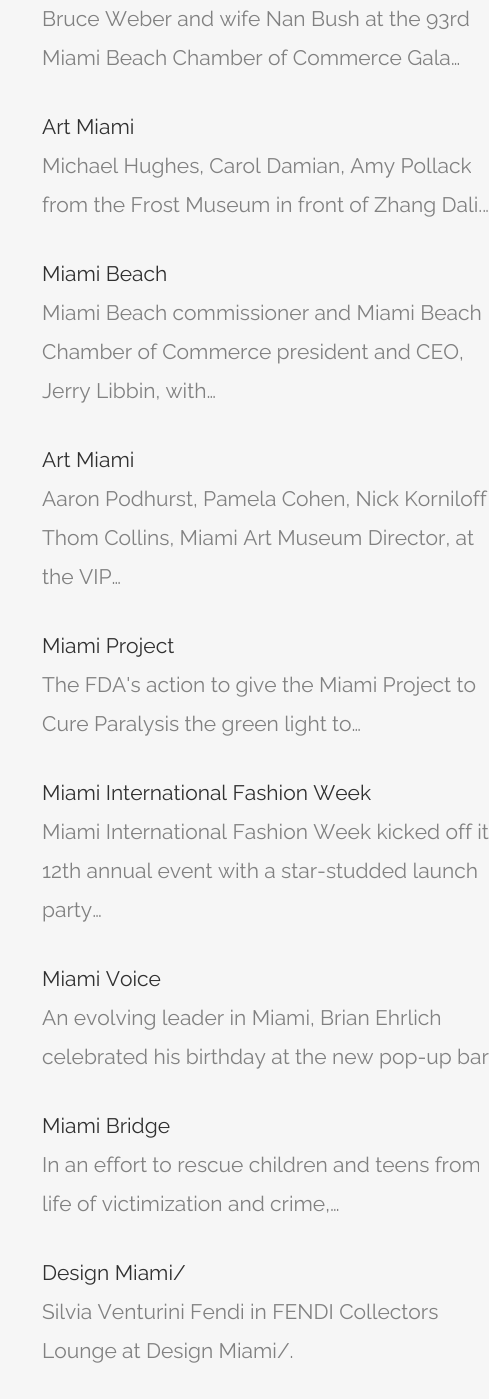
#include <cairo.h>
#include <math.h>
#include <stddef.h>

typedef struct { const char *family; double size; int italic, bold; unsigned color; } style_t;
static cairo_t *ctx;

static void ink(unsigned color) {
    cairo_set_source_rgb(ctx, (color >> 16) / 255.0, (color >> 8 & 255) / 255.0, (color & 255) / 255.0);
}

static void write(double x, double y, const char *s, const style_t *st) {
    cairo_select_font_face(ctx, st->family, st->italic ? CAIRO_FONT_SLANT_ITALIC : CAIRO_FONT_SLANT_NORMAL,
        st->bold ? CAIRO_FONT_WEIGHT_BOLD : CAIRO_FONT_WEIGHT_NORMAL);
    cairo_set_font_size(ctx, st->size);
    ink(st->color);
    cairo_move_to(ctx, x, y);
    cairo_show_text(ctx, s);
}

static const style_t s1 = {"Raleway", 21, 0, 0, 0x818181};
static const style_t s2 = {"Raleway", 21, 0, 0, 0x303030};

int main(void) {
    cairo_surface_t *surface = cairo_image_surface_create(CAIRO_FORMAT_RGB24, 489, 1399);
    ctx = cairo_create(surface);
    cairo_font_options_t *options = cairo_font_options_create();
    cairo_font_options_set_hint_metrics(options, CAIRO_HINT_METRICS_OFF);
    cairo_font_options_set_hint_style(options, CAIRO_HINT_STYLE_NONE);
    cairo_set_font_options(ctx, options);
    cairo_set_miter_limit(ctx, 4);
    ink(0xf6f6f6);
    cairo_paint(ctx);
    write(42, 26, "Bruce Weber and wife Nan Bush at the 93rd", &s1);
    write(42, 65, "Miami Beach Chamber of Commerce Gala…", &s1);
    write(42, 134, "Art Miami", &s2);
    write(42, 173, "Michael Hughes, Carol Damian, Amy Pollack", &s1);
    write(42, 212, "from the Frost Museum in front of Zhang Dali.…", &s1);
    write(42, 281, "Miami Beach", &s2);
    write(42, 320, "Miami Beach commissioner and Miami Beach", &s1);
    write(42, 359, "Chamber of Commerce president and CEO,", &s1);
    write(42, 398, "Jerry Libbin, with…", &s1);
    write(42, 467, "Art Miami", &s2);
    write(42, 506, "Aaron Podhurst, Pamela Cohen, Nick Korniloff", &s1);
    write(42, 545, "Thom Collins, Miami Art Museum Director, at", &s1);
    write(42, 584, "the VIP…", &s1);
    write(42, 653, "Miami Project", &s2);
    write(42, 692, "The FDA's action to give the Miami Project to", &s1);
    write(42, 731, "Cure Paralysis the green light to…", &s1);
    write(42, 800, "Miami International Fashion Week", &s2);
    write(42, 839, "Miami International Fashion Week kicked off it", &s1);
    write(42, 878, "12th annual event with a star-studded launch", &s1);
    write(42, 917, "party…", &s1);
    write(42, 986, "Miami Voice", &s2);
    write(42, 1025, "An evolving leader in Miami, Brian Ehrlich", &s1);
    write(42, 1064, "celebrated his birthday at the new pop-up bar", &s1);
    write(42, 1133, "Miami Bridge", &s2);
    write(42, 1172, "In an effort to rescue children and teens from", &s1);
    write(42, 1211, "life of victimization and crime,…", &s1);
    write(42, 1280, "Design Miami/", &s2);
    write(42, 1319, "Silvia Venturini Fendi in FENDI Collectors", &s1);
    write(42, 1358, "Lounge at Design Miami/.", &s1);
    cairo_surface_write_to_png(surface, "screenshot.png");
    cairo_font_options_destroy(options);
    cairo_destroy(ctx);
    cairo_surface_destroy(surface);
    return 0;
}
